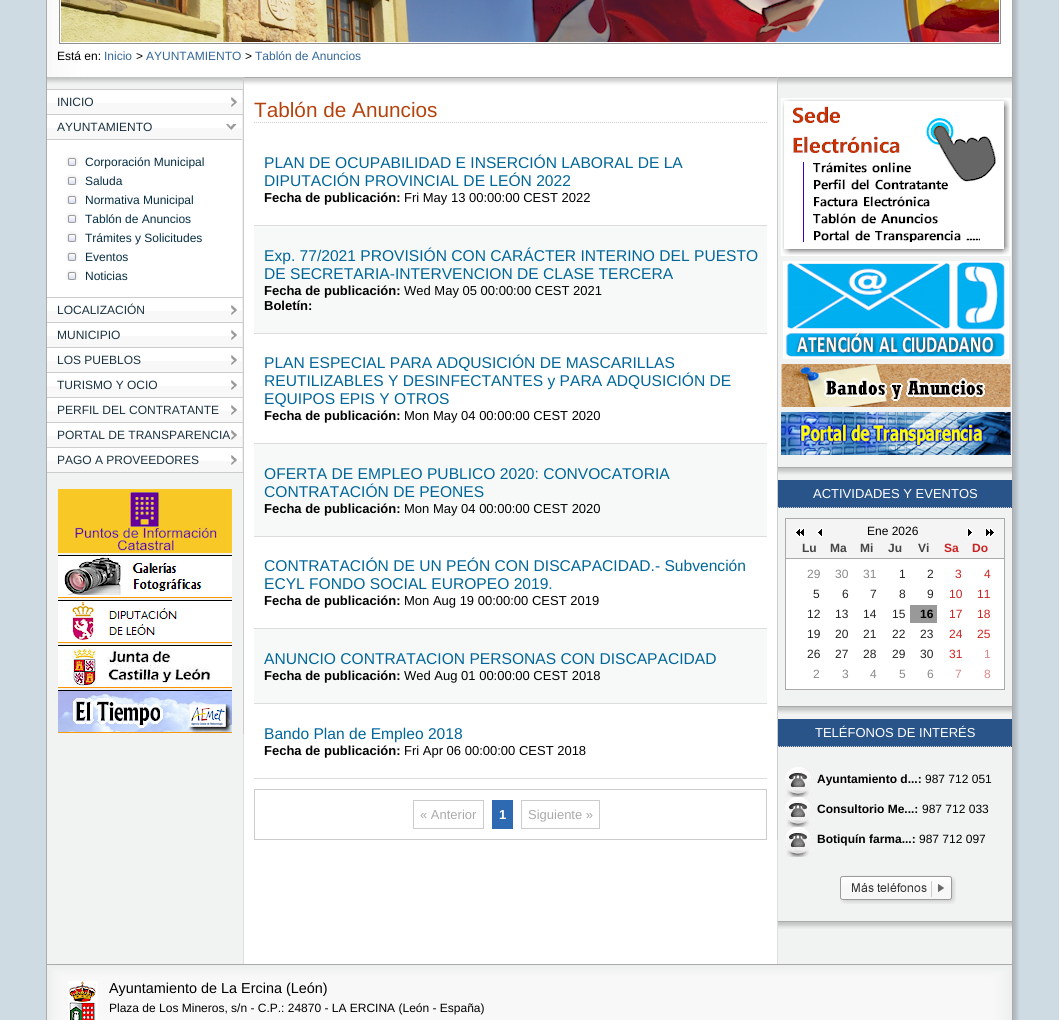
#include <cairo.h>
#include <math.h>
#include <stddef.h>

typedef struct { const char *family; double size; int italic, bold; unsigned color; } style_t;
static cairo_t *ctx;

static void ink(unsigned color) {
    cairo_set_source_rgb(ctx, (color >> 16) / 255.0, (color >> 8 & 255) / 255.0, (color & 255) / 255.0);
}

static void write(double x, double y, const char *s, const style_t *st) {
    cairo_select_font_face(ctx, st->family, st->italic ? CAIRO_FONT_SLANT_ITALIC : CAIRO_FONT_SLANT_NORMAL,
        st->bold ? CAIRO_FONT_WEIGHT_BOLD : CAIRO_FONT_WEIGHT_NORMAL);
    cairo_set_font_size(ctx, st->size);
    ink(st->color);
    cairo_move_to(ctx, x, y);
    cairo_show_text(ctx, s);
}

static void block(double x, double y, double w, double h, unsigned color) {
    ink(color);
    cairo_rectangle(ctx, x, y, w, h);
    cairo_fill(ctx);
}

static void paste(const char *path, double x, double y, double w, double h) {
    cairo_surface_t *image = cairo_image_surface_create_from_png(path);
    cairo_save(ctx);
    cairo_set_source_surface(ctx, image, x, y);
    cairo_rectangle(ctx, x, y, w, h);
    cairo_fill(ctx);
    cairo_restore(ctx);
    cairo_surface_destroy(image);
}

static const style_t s1 = {"Liberation Sans", 12, 0, 0, 0x000000};
static const style_t s2 = {"Liberation Sans", 12, 0, 0, 0x336699};
static const style_t s3 = {"Liberation Sans", 12, 0, 0, 0x1a3240};
static const style_t s4 = {"Liberation Sans", 12, 0, 0, 0x062d43};
static const style_t s5 = {"Liberation Sans", 20.75, 0, 0, 0xb4430d};
static const style_t s6 = {"Liberation Sans", 15.6, 0, 0, 0x006699};
static const style_t s7 = {"Liberation Sans", 13, 0, 1, 0x000000};
static const style_t s8 = {"Liberation Sans", 13, 0, 0, 0x000000};
static const style_t s9 = {"Liberation Sans", 13, 0, 0, 0xaaaaaa};
static const style_t s10 = {"Liberation Sans", 13, 0, 1, 0xffffff};
static const style_t s11 = {"Liberation Sans", 13, 0, 0, 0xffffff};
static const style_t s12 = {"Liberation Sans", 12, 0, 1, 0x444444};
static const style_t s13 = {"Liberation Sans", 12, 0, 1, 0xcc2222};
static const style_t s14 = {"Liberation Sans", 12, 0, 0, 0x888888};
static const style_t s15 = {"Liberation Sans", 12, 0, 0, 0x222222};
static const style_t s16 = {"Liberation Sans", 12, 0, 0, 0xcc2222};
static const style_t s17 = {"Liberation Sans", 12, 0, 1, 0x000000};
static const style_t s18 = {"Liberation Sans", 12, 0, 0, 0xdd8888};
static const style_t s19 = {"Liberation Sans", 14.4, 0, 0, 0x000000};

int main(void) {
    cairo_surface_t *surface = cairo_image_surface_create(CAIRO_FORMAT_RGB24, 1059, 1020);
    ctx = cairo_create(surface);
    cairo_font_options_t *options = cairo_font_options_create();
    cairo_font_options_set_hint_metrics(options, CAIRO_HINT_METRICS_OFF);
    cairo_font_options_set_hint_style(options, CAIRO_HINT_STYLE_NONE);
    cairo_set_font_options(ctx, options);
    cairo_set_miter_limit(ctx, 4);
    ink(0xcedbe3);
    cairo_paint(ctx);
    paste("pic1.png", 46, 0, 973, 1020);
    cairo_rectangle(ctx, 59.5, -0.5, 941, 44);
    ink(0x8f8f8f);
    cairo_set_line_width(ctx, 1);
    cairo_stroke(ctx);
    paste("pic2.png", 61, 0, 938, 42);
    write(57, 60, "Está en:", &s1);
    write(104, 60, "Inicio", &s2);
    write(136, 60, ">", &s1);
    write(146, 60, "AYUNTAMIENTO", &s2);
    write(245, 60, ">", &s1);
    write(255, 60, "Tablón de Anuncios", &s2);
    paste("pic3.png", 47, 85, 965, 879);
    block(47, 84, 196, 1, 0xf1f2f2);
    paste("pic4.png", 47, 77, 196, 7);
    block(243, 77, 1, 657, 0xcccccc);
    block(47, 89, 196, 1, 0xcccccc);
    block(47, 114, 196, 1, 0xcccccc);
    block(47, 90, 195, 13, 0xffffff);
    block(47, 103, 195, 11, 0xf8f8f8);
    block(242, 90, 1, 24, 0xeeeeee);
    paste("pic5.png", 231, 97, 6, 10);
    write(57, 106, "INICIO", &s3);
    block(47, 297, 196, 1, 0xcccccc);
    block(47, 115, 195, 13, 0xffffff);
    block(47, 128, 195, 11, 0xf8f8f8);
    block(242, 115, 1, 24, 0xeeeeee);
    paste("pic6.png", 226, 124, 11, 6);
    write(57, 131, "AYUNTAMIENTO", &s3);
    block(47, 140, 195, 157, 0xffffff);
    block(47, 139, 196, 1, 0xcccccc);
    block(242, 139, 1, 158, 0xeeeeee);
    paste("pic7.png", 66, 155, 12, 11);
    write(85, 166, "Corporación Municipal", &s4);
    paste("pic7.png", 66, 174, 12, 11);
    write(85, 185, "Saluda", &s4);
    paste("pic7.png", 66, 193, 12, 11);
    write(85, 204, "Normativa Municipal", &s4);
    paste("pic7.png", 66, 212, 12, 11);
    write(85, 223, "Tablón de Anuncios", &s4);
    paste("pic7.png", 66, 231, 12, 11);
    write(85, 242, "Trámites y Solicitudes", &s4);
    paste("pic7.png", 66, 250, 12, 11);
    write(85, 261, "Eventos", &s4);
    paste("pic7.png", 66, 269, 12, 11);
    write(85, 280, "Noticias", &s4);
    block(47, 322, 196, 1, 0xcccccc);
    block(47, 298, 195, 13, 0xffffff);
    block(47, 311, 195, 11, 0xf8f8f8);
    block(242, 298, 1, 24, 0xeeeeee);
    paste("pic5.png", 231, 305, 6, 10);
    write(57, 314, "LOCALIZACIÓN", &s3);
    block(47, 347, 196, 1, 0xcccccc);
    block(47, 323, 195, 13, 0xffffff);
    block(47, 336, 195, 11, 0xf8f8f8);
    block(242, 323, 1, 24, 0xeeeeee);
    paste("pic5.png", 231, 330, 6, 10);
    write(57, 339, "MUNICIPIO", &s3);
    block(47, 372, 196, 1, 0xcccccc);
    block(47, 348, 195, 13, 0xffffff);
    block(47, 361, 195, 11, 0xf8f8f8);
    block(242, 348, 1, 24, 0xeeeeee);
    paste("pic5.png", 231, 355, 6, 10);
    write(57, 364, "LOS PUEBLOS", &s3);
    block(47, 397, 196, 1, 0xcccccc);
    block(47, 373, 195, 13, 0xffffff);
    block(47, 386, 195, 11, 0xf8f8f8);
    block(242, 373, 1, 24, 0xeeeeee);
    paste("pic5.png", 231, 380, 6, 10);
    write(57, 389, "TURISMO Y OCIO", &s3);
    block(47, 422, 196, 1, 0xcccccc);
    block(47, 398, 195, 13, 0xffffff);
    block(47, 411, 195, 11, 0xf8f8f8);
    block(242, 398, 1, 24, 0xeeeeee);
    paste("pic5.png", 231, 405, 6, 10);
    write(57, 414, "PERFIL DEL CONTRATANTE", &s3);
    block(47, 447, 196, 1, 0xcccccc);
    block(47, 423, 195, 13, 0xffffff);
    block(47, 436, 195, 11, 0xf8f8f8);
    block(242, 423, 1, 24, 0xeeeeee);
    paste("pic5.png", 231, 430, 6, 10);
    write(57, 439, "PORTAL DE TRANSPARENCIA", &s3);
    block(47, 472, 196, 1, 0xcccccc);
    block(47, 448, 195, 13, 0xffffff);
    block(47, 461, 195, 11, 0xf8f8f8);
    block(242, 448, 1, 24, 0xeeeeee);
    paste("pic5.png", 231, 455, 6, 10);
    write(57, 464, "PAGO A PROVEEDORES", &s3);
    paste("pic8.png", 58, 489, 174, 64);
    paste("pic9.png", 58, 555, 174, 43);
    paste("pic10.png", 58, 600, 174, 43);
    paste("pic11.png", 58, 645, 174, 43);
    paste("pic12.png", 58, 690, 174, 43);
    paste("pic13.png", 244, 78, 533, 7);
    block(244, 77, 768, 1, 0xaaaaaa);
    block(777, 77, 1, 763, 0xcccccc);
    cairo_new_path(ctx);
    cairo_move_to(ctx, 254, 122.5);
    cairo_line_to(ctx, 767, 122.5);
    cairo_set_dash(ctx, (double[]){1, 1}, 2, 0);
    cairo_stroke(ctx);
    write(254, 117, "Tablón de Anuncios", &s5);
    write(264, 168, "PLAN DE OCUPABILIDAD E INSERCIÓN LABORAL DE LA", &s6);
    write(264, 186, "DIPUTACIÓN PROVINCIAL DE LEÓN 2022", &s6);
    write(264, 202, "Fecha de publicación:", &s7);
    write(404, 202, "Fri May 13 00:00:00 CEST 2022", &s8);
    block(254, 225, 513, 1, 0xdddddd);
    block(254, 226, 513, 107, 0xf7f9f9);
    write(264, 261, "Exp. 77/2021 PROVISIÓN CON CARÁCTER INTERINO DEL PUESTO", &s6);
    write(264, 279, "DE SECRETARIA-INTERVENCION DE CLASE TERCERA", &s6);
    write(264, 295, "Fecha de publicación:", &s7);
    write(404, 295, "Wed May 05 00:00:00 CEST 2021", &s8);
    write(264, 310, "Boletín:", &s7);
    block(254, 333, 513, 1, 0xdddddd);
    write(264, 368, "PLAN ESPECIAL PARA ADQUSICIÓN DE MASCARILLAS", &s6);
    write(264, 386, "REUTILIZABLES Y DESINFECTANTES y PARA ADQUSICIÓN DE", &s6);
    write(264, 404, "EQUIPOS EPIS Y OTROS", &s6);
    write(264, 420, "Fecha de publicación:", &s7);
    write(404, 420, "Mon May 04 00:00:00 CEST 2020", &s8);
    block(254, 443, 513, 1, 0xdddddd);
    block(254, 444, 513, 92, 0xf7f9f9);
    write(264, 479, "OFERTA DE EMPLEO PUBLICO 2020: CONVOCATORIA", &s6);
    write(264, 497, "CONTRATACIÓN DE PEONES", &s6);
    write(264, 513, "Fecha de publicación:", &s7);
    write(404, 513, "Mon May 04 00:00:00 CEST 2020", &s8);
    block(254, 536, 513, 1, 0xdddddd);
    write(264, 571, "CONTRATACIÓN DE UN PEÓN CON DISCAPACIDAD.- Subvención", &s6);
    write(264, 589, "ECYL FONDO SOCIAL EUROPEO 2019.", &s6);
    write(264, 605, "Fecha de publicación:", &s7);
    write(404, 605, "Mon Aug 19 00:00:00 CEST 2019", &s8);
    block(254, 628, 513, 1, 0xdddddd);
    block(254, 629, 513, 74, 0xf7f9f9);
    write(264, 664, "ANUNCIO CONTRATACION PERSONAS CON DISCAPACIDAD", &s6);
    write(264, 680, "Fecha de publicación:", &s7);
    write(404, 680, "Wed Aug 01 00:00:00 CEST 2018", &s8);
    block(254, 703, 513, 1, 0xdddddd);
    write(264, 739, "Bando Plan de Empleo 2018", &s6);
    write(264, 755, "Fecha de publicación:", &s7);
    write(404, 755, "Fri Apr 06 00:00:00 CEST 2018", &s8);
    block(254, 778, 513, 1, 0xdddddd);
    cairo_rectangle(ctx, 254.5, 789.5, 512, 50);
    ink(0xcccccc);
    cairo_set_dash(ctx, NULL, 0, 0);
    cairo_stroke(ctx);
    cairo_rectangle(ctx, 413.5, 800.5, 70, 28);
    cairo_stroke(ctx);
    write(420, 819, "« Anterior", &s9);
    block(492, 800, 21, 29, 0x2e6ab1);
    write(499, 819, "1", &s10);
    cairo_rectangle(ctx, 521.5, 800.5, 78, 28);
    ink(0xcccccc);
    cairo_stroke(ctx);
    write(528, 819, "Siguiente »", &s9);
    paste("pic14.png", 778, 78, 234, 7);
    paste("pic15.png", 781, 98, 230, 158);
    paste("pic16.png", 783, 261, 226, 98);
    paste("pic17.png", 781, 364, 230, 43);
    paste("pic18.png", 781, 412, 230, 43);
    paste("pic14.png", 778, 468, 234, 7);
    block(778, 467, 234, 1, 0xaaaaaa);
    block(778, 480, 234, 28, 0x29548a);
    cairo_new_path(ctx);
    cairo_move_to(ctx, 778, 507.5);
    cairo_line_to(ctx, 1012, 507.5);
    ink(0xcccccc);
    cairo_set_dash(ctx, (double[]){1, 1}, 2, 0);
    cairo_stroke(ctx);
    write(813, 498, "ACTIVIDADES Y EVENTOS", &s11);
    block(786, 559, 218, 130, 0xffffff);
    cairo_rectangle(ctx, 785.5, 518.5, 219, 171);
    ink(0xaaaaaa);
    cairo_set_dash(ctx, NULL, 0, 0);
    cairo_stroke(ctx);
    block(786, 519, 218, 39, 0xf4f4f4);
    block(786, 558, 218, 1, 0xaaaaaa);
    paste("pic19.png", 794, 528, 11, 9);
    paste("pic20.png", 816, 528, 7, 9);
    write(867, 535, "Ene 2026", &s1);
    paste("pic21.png", 967, 528, 7, 9);
    paste("pic22.png", 985, 528, 11, 9);
    write(802, 552, "Lu", &s12);
    write(830, 552, "Ma", &s12);
    write(860, 552, "Mi", &s12);
    write(888, 552, "Ju", &s12);
    write(918, 552, "Vi", &s12);
    write(944, 552, "Sa", &s13);
    write(972, 552, "Do", &s13);
    write(807, 578, "29", &s14);
    write(835, 578, "30", &s14);
    write(863, 578, "31", &s14);
    write(899, 578, "1", &s15);
    write(927, 578, "2", &s15);
    write(955, 578, "3", &s16);
    write(984, 578, "4", &s16);
    write(813, 598, "5", &s15);
    write(842, 598, "6", &s15);
    write(870, 598, "7", &s15);
    write(899, 598, "8", &s15);
    write(927, 598, "9", &s15);
    write(949, 598, "10", &s16);
    write(977, 598, "11", &s16);
    write(807, 618, "12", &s15);
    write(835, 618, "13", &s15);
    write(863, 618, "14", &s15);
    write(892, 618, "15", &s15);
    block(910, 605, 27, 18, 0x999999);
    write(920, 618, "16", &s17);
    write(949, 618, "17", &s16);
    write(977, 618, "18", &s16);
    write(807, 638, "19", &s15);
    write(835, 638, "20", &s15);
    write(863, 638, "21", &s15);
    write(892, 638, "22", &s15);
    write(920, 638, "23", &s15);
    write(949, 638, "24", &s16);
    write(977, 638, "25", &s16);
    write(807, 658, "26", &s15);
    write(835, 658, "27", &s15);
    write(863, 658, "28", &s15);
    write(892, 658, "29", &s15);
    write(920, 658, "30", &s15);
    write(949, 658, "31", &s16);
    write(984, 658, "1", &s18);
    write(813, 678, "2", &s14);
    write(842, 678, "3", &s14);
    write(870, 678, "4", &s14);
    write(899, 678, "5", &s14);
    write(927, 678, "6", &s14);
    write(955, 678, "7", &s18);
    write(984, 678, "8", &s18);
    paste("pic14.png", 778, 707, 234, 7);
    block(778, 706, 234, 1, 0xaaaaaa);
    block(778, 719, 234, 28, 0x29548a);
    cairo_new_path(ctx);
    cairo_move_to(ctx, 778, 746.5);
    cairo_line_to(ctx, 1012, 746.5);
    ink(0xcccccc);
    cairo_set_dash(ctx, (double[]){1, 1}, 2, 0);
    cairo_stroke(ctx);
    write(815, 737, "TELÉFONOS DE INTERÉS", &s11);
    paste("pic23.png", 783, 767, 31, 30);
    write(817, 783, "Ayuntamiento d...:", &s17);
    write(925, 783, "987 712 051", &s1);
    paste("pic23.png", 783, 797, 31, 30);
    write(817, 813, "Consultorio Me...:", &s17);
    write(922, 813, "987 712 033", &s1);
    paste("pic23.png", 783, 827, 31, 30);
    write(817, 843, "Botiquín farma...:", &s17);
    write(919, 843, "987 712 097", &s1);
    paste("pic24.png", 840, 872, 116, 32);
    paste("pic14.png", 778, 922, 234, 7);
    block(778, 921, 234, 1, 0xaaaaaa);
    paste("pic25.png", 47, 965, 965, 55);
    block(47, 964, 965, 1, 0xaaaaaa);
    paste("pic26.png", 68, 981, 30, 39);
    write(109, 993, "Ayuntamiento de La Ercina (León)", &s19);
    write(109, 1012, "Plaza de Los Mineros, s/n - C.P.: 24870 - LA ERCINA (León - España)", &s1);
    cairo_surface_write_to_png(surface, "screenshot.png");
    cairo_font_options_destroy(options);
    cairo_destroy(ctx);
    cairo_surface_destroy(surface);
    return 0;
}
